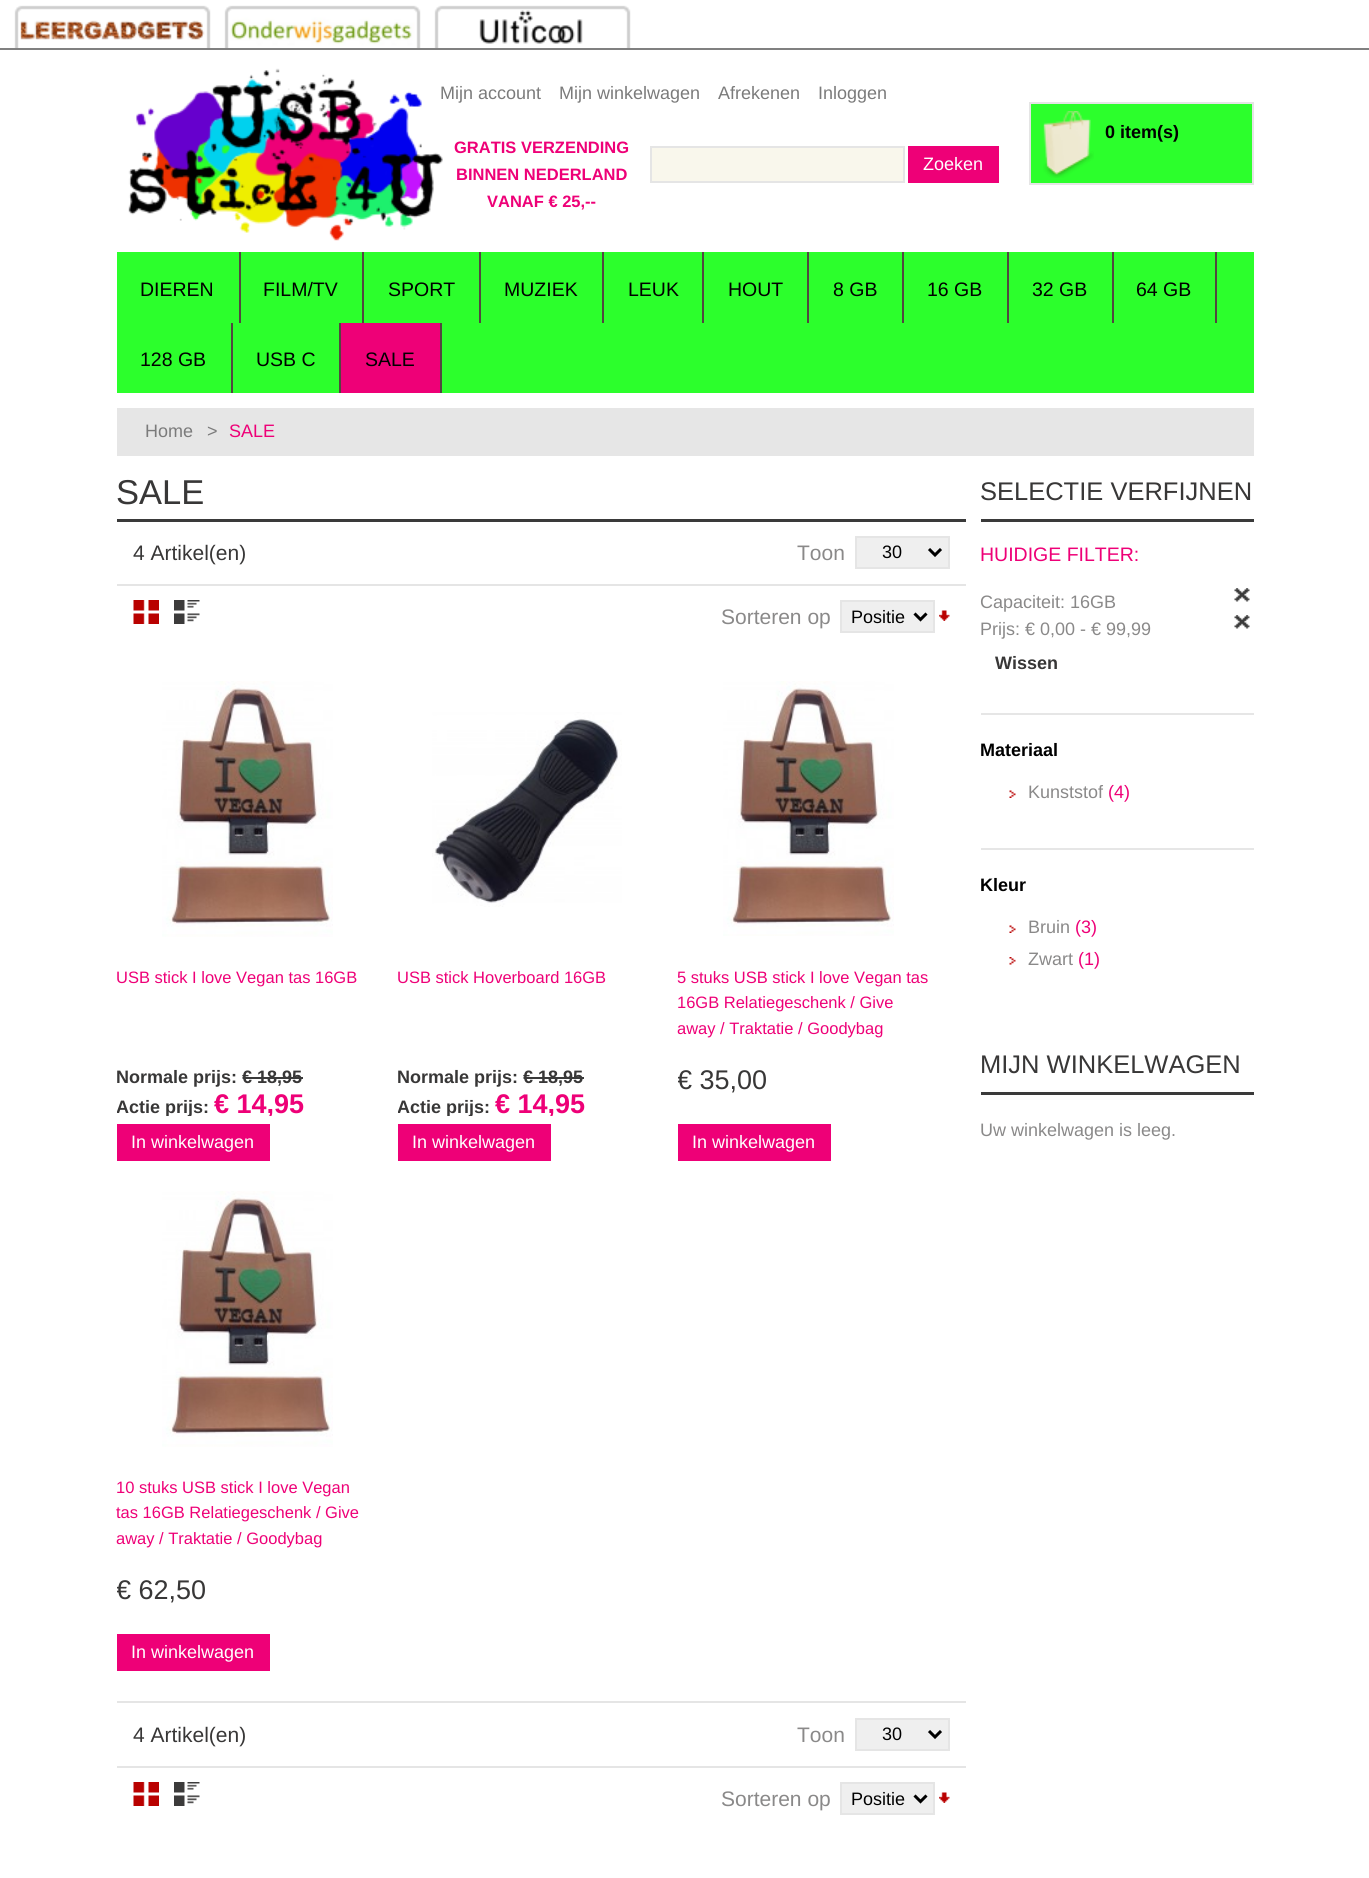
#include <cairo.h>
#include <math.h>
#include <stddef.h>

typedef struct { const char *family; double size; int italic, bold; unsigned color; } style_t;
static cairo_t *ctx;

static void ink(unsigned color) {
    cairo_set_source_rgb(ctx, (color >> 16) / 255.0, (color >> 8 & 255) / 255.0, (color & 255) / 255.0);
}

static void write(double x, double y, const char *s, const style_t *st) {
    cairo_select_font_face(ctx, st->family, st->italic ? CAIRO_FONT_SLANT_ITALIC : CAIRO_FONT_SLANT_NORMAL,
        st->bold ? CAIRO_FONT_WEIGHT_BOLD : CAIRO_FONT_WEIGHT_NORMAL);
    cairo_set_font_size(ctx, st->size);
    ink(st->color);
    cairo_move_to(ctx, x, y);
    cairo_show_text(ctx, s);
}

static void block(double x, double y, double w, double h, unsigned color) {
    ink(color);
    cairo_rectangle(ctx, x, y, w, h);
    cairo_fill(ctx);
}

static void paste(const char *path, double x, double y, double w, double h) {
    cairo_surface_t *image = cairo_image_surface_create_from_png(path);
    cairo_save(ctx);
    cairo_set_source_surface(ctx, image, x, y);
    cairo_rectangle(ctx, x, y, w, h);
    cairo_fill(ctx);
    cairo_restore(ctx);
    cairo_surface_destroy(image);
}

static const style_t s1 = {"Liberation Sans", 18, 0, 0, 0x7b7b7b};
static const style_t s2 = {"Liberation Sans", 18, 0, 1, 0x000000};
static const style_t s3 = {"Liberation Sans", 16.5, 0, 1, 0xee0077};
static const style_t s4 = {"Liberation Sans", 18, 0, 0, 0xffffff};
static const style_t s5 = {"Liberation Sans", 19.5, 0, 0, 0x000000};
static const style_t s6 = {"Liberation Sans", 18, 0, 0, 0xee0077};
static const style_t s7 = {"Liberation Sans", 34.5, 0, 0, 0x383737};
static const style_t s8 = {"Liberation Sans", 21, 0, 0, 0x383737};
static const style_t s9 = {"Liberation Sans", 21, 0, 0, 0x8a8989};
static const style_t s10 = {"Liberation Sans", 18, 0, 0, 0x000000};
static const style_t s11 = {"Liberation Sans", 16.5, 0, 0, 0xee0077};
static const style_t s12 = {"Liberation Sans", 18, 0, 1, 0x383737};
static const style_t s13 = {"Liberation Sans", 27, 0, 1, 0xee0077};
static const style_t s14 = {"Liberation Sans", 27, 0, 0, 0x383737};
static const style_t s15 = {"Liberation Sans", 25.5, 0, 0, 0x383737};
static const style_t s16 = {"Liberation Sans", 19.5, 0, 0, 0xee0077};
static const style_t s17 = {"Liberation Sans", 18, 0, 0, 0x8a8989};

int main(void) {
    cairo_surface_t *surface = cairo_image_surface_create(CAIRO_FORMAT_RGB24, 1369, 1878);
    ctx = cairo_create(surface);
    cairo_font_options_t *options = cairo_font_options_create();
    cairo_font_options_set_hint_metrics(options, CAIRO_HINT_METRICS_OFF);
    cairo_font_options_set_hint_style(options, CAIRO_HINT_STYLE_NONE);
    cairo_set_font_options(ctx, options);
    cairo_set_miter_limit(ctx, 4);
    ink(0xffffff);
    cairo_paint(ctx);
    block(0, 48, 1369, 2, 0x808080);
    paste("pic1.png", 14, 5, 197, 43);
    paste("pic2.png", 224, 5, 197, 43);
    paste("pic3.png", 434, 5, 197, 43);
    paste("pic4.png", 128, 68, 315, 173);
    write(440, 99, "Mijn account", &s1);
    write(559, 99, "Mijn winkelwagen", &s1);
    write(718, 99, "Afrekenen", &s1);
    write(818, 99, "Inloggen", &s1);
    block(1031, 104, 221, 79, 0x2cff2c);
    paste("pic5.png", 1043, 111, 51, 67);
    cairo_rectangle(ctx, 1030, 103, 223, 81);
    ink(0xe5e5e5);
    cairo_stroke(ctx);
    write(1105, 138, "0 item(s)", &s2);
    write(454, 153, "GRATIS VERZENDING", &s3);
    write(456, 180, "BINNEN NEDERLAND", &s3);
    write(487, 207, "VANAF € 25,--", &s3);
    ink(0xf9f7ec);
    cairo_rectangle(ctx, 651, 147, 253, 35);
    cairo_fill_preserve(ctx);
    ink(0xe5e5e5);
    cairo_stroke(ctx);
    block(908, 146, 91, 37, 0xee0077);
    write(923, 170, "Zoeken", &s4);
    block(117, 252, 1137, 141, 0x2cff2c);
    block(239, 252, 2, 71, 0x524640);
    write(140, 296, "DIEREN", &s5);
    block(362, 252, 2, 71, 0x524640);
    write(263, 296, "FILM/TV", &s5);
    block(479, 252, 2, 71, 0x524640);
    write(388, 296, "SPORT", &s5);
    block(602, 252, 2, 71, 0x524640);
    write(504, 296, "MUZIEK", &s5);
    block(702, 252, 2, 71, 0x524640);
    write(628, 296, "LEUK", &s5);
    block(807, 252, 2, 71, 0x524640);
    write(728, 296, "HOUT", &s5);
    block(902, 252, 2, 71, 0x524640);
    write(833, 296, "8 GB", &s5);
    block(1007, 252, 2, 71, 0x524640);
    write(927, 296, "16 GB", &s5);
    block(1112, 252, 2, 71, 0x524640);
    write(1032, 296, "32 GB", &s5);
    block(1215, 252, 2, 71, 0x524640);
    write(1136, 296, "64 GB", &s5);
    block(231, 323, 2, 70, 0x524640);
    write(140, 366, "128 GB", &s5);
    block(339, 323, 2, 70, 0x524640);
    write(256, 366, "USB C", &s5);
    block(341, 323, 99, 70, 0xee0077);
    block(440, 323, 2, 70, 0x524640);
    write(365, 366, "SALE", &s5);
    block(117, 408, 1137, 48, 0xe6e6e6);
    write(145, 437, "Home", &s1);
    write(207, 437, ">", &s1);
    write(229, 437, "SALE", &s6);
    block(117, 519, 849, 3, 0x3a3a3a);
    write(116, 504, "SALE", &s7);
    block(117, 584, 849, 2, 0xe5e5e5);
    write(133, 560, "4 Artikel(en)", &s8);
    write(797, 560, "Toon", &s9);
    ink(0xefefef);
    cairo_rectangle(ctx, 856, 537, 93, 31);
    cairo_fill_preserve(ctx);
    ink(0xe5e5e5);
    cairo_stroke(ctx);
    cairo_new_path(ctx);
    cairo_move_to(ctx, 929, 549);
    cairo_line_to(ctx, 935, 555);
    cairo_line_to(ctx, 941, 549);
    ink(0x000000);
    cairo_set_line_width(ctx, 3);
    cairo_stroke(ctx);
    write(882, 558, "30", &s10);
    paste("pic6.png", 133, 600, 26, 24);
    paste("pic7.png", 174, 600, 26, 24);
    write(721, 624, "Sorteren op", &s9);
    ink(0xefefef);
    cairo_rectangle(ctx, 841, 601, 93, 31);
    cairo_fill_preserve(ctx);
    ink(0xe5e5e5);
    cairo_set_line_width(ctx, 2);
    cairo_stroke(ctx);
    cairo_new_path(ctx);
    cairo_move_to(ctx, 914.5, 613.5);
    cairo_line_to(ctx, 920.5, 619.5);
    cairo_line_to(ctx, 926.5, 613.5);
    ink(0x000000);
    cairo_set_line_width(ctx, 3);
    cairo_stroke(ctx);
    write(851, 623, "Positie", &s10);
    paste("pic8.png", 939, 610, 11, 11);
    paste("pic9.png", 162, 681, 171, 256);
    write(116, 983, "USB stick I love Vegan tas 16GB", &s11);
    write(116, 1083, "Normale prijs: € 18,95", &s12);
    block(243, 1077, 60, 2, 0x3a3a3a);
    cairo_save(ctx);
    cairo_rectangle(ctx, 117, 1064, 258, 52);
    cairo_clip(ctx);
    write(116, 1113, "Actie prijs:", &s12);
    write(214, 1113, "€ 14,95", &s13);
    cairo_restore(ctx);
    block(117, 1124, 153, 37, 0xee0077);
    write(131, 1148, "In winkelwagen", &s4);
    paste("pic10.png", 432, 712, 190, 195);
    write(397, 983, "USB stick Hoverboard 16GB", &s11);
    write(397, 1083, "Normale prijs: € 18,95", &s12);
    block(524, 1077, 60, 2, 0x3a3a3a);
    cairo_save(ctx);
    cairo_rectangle(ctx, 398, 1064, 258, 52);
    cairo_clip(ctx);
    write(397, 1113, "Actie prijs:", &s12);
    write(495, 1113, "€ 14,95", &s13);
    cairo_restore(ctx);
    block(398, 1124, 153, 37, 0xee0077);
    write(412, 1148, "In winkelwagen", &s4);
    paste("pic11.png", 723, 681, 171, 255);
    write(677, 983, "5 stuks USB stick I love Vegan tas", &s11);
    write(677, 1008, "16GB Relatiegeschenk / Give", &s11);
    write(677, 1034, "away / Traktatie / Goodybag", &s11);
    cairo_save(ctx);
    cairo_rectangle(ctx, 678, 1064, 258, 52);
    cairo_clip(ctx);
    write(677, 1089, "€ 35,00", &s14);
    cairo_restore(ctx);
    block(678, 1124, 153, 37, 0xee0077);
    write(692, 1148, "In winkelwagen", &s4);
    paste("pic9.png", 162, 1191, 171, 256);
    write(116, 1493, "10 stuks USB stick I love Vegan", &s11);
    write(116, 1518, "tas 16GB Relatiegeschenk / Give", &s11);
    write(116, 1544, "away / Traktatie / Goodybag", &s11);
    cairo_save(ctx);
    cairo_rectangle(ctx, 117, 1574, 258, 52);
    cairo_clip(ctx);
    write(116, 1599, "€ 62,50", &s14);
    cairo_restore(ctx);
    block(117, 1634, 153, 37, 0xee0077);
    write(131, 1658, "In winkelwagen", &s4);
    block(117, 1701, 849, 2, 0xe5e5e5);
    block(117, 1766, 849, 2, 0xe5e5e5);
    write(133, 1742, "4 Artikel(en)", &s8);
    write(797, 1742, "Toon", &s9);
    ink(0xefefef);
    cairo_rectangle(ctx, 856, 1719, 93, 31);
    cairo_fill_preserve(ctx);
    ink(0xe5e5e5);
    cairo_set_line_width(ctx, 2);
    cairo_stroke(ctx);
    cairo_new_path(ctx);
    cairo_move_to(ctx, 929, 1731);
    cairo_line_to(ctx, 935, 1737);
    cairo_line_to(ctx, 941, 1731);
    ink(0x000000);
    cairo_set_line_width(ctx, 3);
    cairo_stroke(ctx);
    write(882, 1740, "30", &s10);
    paste("pic6.png", 133, 1782, 26, 24);
    paste("pic7.png", 174, 1782, 26, 24);
    write(721, 1806, "Sorteren op", &s9);
    ink(0xefefef);
    cairo_rectangle(ctx, 841, 1783, 93, 31);
    cairo_fill_preserve(ctx);
    ink(0xe5e5e5);
    cairo_set_line_width(ctx, 2);
    cairo_stroke(ctx);
    cairo_new_path(ctx);
    cairo_move_to(ctx, 914.5, 1795.5);
    cairo_line_to(ctx, 920.5, 1801.5);
    cairo_line_to(ctx, 926.5, 1795.5);
    ink(0x000000);
    cairo_set_line_width(ctx, 3);
    cairo_stroke(ctx);
    write(851, 1805, "Positie", &s10);
    paste("pic8.png", 939, 1792, 11, 11);
    block(981, 519, 273, 3, 0x3a3a3a);
    write(980, 500, "SELECTIE VERFIJNEN", &s15);
    write(980, 561, "HUIDIGE FILTER:", &s16);
    write(980, 608, "Capaciteit: 16GB", &s17);
    paste("pic12.png", 1234, 588, 16, 14);
    write(980, 635, "Prijs: € 0,00 - € 99,99", &s17);
    paste("pic12.png", 1234, 615, 16, 14);
    write(995, 669, "Wissen", &s12);
    block(981, 713, 273, 2, 0xe6e6e6);
    write(980, 756, "Materiaal", &s2);
    paste("pic13.png", 1009, 790, 7, 8);
    write(1028, 798, "Kunststof", &s17);
    write(1108, 798, "(4)", &s6);
    block(981, 848, 273, 2, 0xe6e6e6);
    write(980, 891, "Kleur", &s2);
    paste("pic13.png", 1009, 925, 7, 8);
    write(1028, 933, "Bruin", &s17);
    write(1075, 933, "(3)", &s6);
    paste("pic14.png", 1009, 957, 7, 8);
    write(1028, 965, "Zwart", &s17);
    write(1078, 965, "(1)", &s6);
    block(981, 1092, 273, 3, 0x3a3a3a);
    write(980, 1073, "MIJN WINKELWAGEN", &s15);
    write(980, 1136, "Uw winkelwagen is leeg.", &s17);
    cairo_surface_write_to_png(surface, "screenshot.png");
    cairo_font_options_destroy(options);
    cairo_destroy(ctx);
    cairo_surface_destroy(surface);
    return 0;
}
